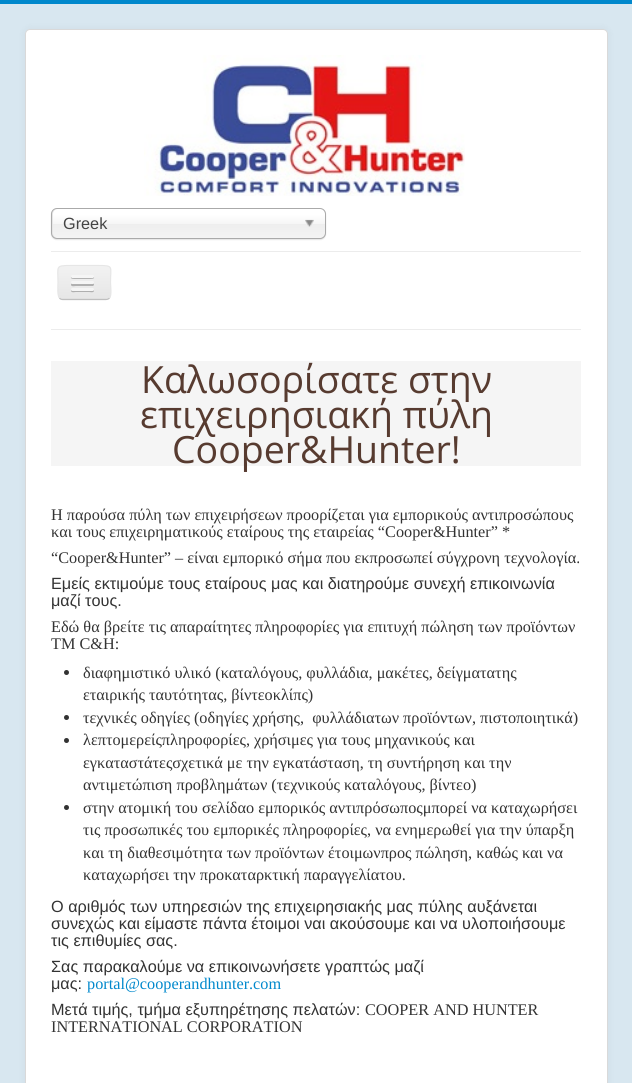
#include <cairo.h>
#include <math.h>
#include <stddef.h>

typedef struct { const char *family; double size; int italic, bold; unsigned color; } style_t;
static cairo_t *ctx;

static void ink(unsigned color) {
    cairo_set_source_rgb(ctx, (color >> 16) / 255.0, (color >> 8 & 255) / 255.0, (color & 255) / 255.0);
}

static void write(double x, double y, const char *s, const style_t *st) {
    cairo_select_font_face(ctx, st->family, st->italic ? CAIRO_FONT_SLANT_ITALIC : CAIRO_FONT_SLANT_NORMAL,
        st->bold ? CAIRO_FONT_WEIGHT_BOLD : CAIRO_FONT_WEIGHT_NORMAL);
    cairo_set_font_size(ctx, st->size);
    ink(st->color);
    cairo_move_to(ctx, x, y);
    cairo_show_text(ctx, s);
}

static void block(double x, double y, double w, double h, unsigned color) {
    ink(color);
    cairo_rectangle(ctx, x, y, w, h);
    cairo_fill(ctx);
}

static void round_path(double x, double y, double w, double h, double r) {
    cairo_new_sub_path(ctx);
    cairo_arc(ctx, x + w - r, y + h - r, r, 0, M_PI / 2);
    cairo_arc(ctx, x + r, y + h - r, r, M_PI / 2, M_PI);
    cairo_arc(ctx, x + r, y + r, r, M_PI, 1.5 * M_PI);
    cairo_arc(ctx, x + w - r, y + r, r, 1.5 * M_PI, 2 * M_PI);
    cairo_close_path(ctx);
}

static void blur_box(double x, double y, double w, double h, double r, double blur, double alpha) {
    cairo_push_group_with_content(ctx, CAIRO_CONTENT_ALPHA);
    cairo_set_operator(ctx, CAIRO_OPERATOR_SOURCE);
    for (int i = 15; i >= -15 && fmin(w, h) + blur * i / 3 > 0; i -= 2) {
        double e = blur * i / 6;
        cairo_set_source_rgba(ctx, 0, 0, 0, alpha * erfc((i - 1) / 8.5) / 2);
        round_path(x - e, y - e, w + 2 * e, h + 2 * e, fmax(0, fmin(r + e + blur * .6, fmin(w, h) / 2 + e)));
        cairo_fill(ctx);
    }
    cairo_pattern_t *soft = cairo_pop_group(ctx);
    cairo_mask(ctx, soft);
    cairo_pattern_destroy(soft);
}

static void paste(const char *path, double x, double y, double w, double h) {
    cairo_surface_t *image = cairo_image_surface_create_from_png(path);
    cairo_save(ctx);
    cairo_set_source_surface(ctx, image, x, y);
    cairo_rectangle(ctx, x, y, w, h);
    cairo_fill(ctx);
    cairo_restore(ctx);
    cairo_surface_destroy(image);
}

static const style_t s1 = {"Liberation Sans", 16.25, 0, 0, 0x444444};
static const style_t s2 = {"Open Sans", 37.5, 0, 0, 0x573b30};
static const style_t s3 = {"Liberation Serif", 16.25, 0, 0, 0x333333};
static const style_t s4 = {"Liberation Sans", 16.25, 0, 0, 0x333333};
static const style_t s5 = {"Liberation Serif", 16.25, 0, 0, 0x0088cc};

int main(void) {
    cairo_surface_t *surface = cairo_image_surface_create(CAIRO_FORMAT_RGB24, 632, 1083);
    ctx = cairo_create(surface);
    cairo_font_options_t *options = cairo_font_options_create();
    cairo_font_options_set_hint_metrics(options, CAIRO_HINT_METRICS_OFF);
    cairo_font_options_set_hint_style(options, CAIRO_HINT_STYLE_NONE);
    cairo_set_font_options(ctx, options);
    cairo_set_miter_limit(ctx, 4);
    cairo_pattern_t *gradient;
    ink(0xd8e7f0);
    cairo_paint(ctx);
    block(0, 0, 632, 4, 0x0088cc);
    ink(0x000000);
    blur_box(25, 29, 583, 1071, 5, 4, 0.05);
    ink(0xffffff);
    round_path(25, 29, 583, 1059, 5);
    cairo_fill(ctx);
    round_path(25.5, 29.5, 582, 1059, 4.5);
    cairo_set_source_rgba(ctx, 0, 0, 0, 0.15);
    cairo_set_line_width(ctx, 1);
    cairo_stroke(ctx);
    paste("pic1.png", 144, 55, 321, 141);
    ink(0x000000);
    blur_box(51, 209, 275, 31, 6, 0.5, 0.1);
    gradient = cairo_pattern_create_linear(189, 209, 189, 238);
    cairo_pattern_add_color_stop_rgba(gradient, 0.2, 1, 1, 1, 1);
    cairo_pattern_add_color_stop_rgba(gradient, 0.5, 0.965, 0.965, 0.965, 1);
    cairo_pattern_add_color_stop_rgba(gradient, 0.52, 0.933, 0.933, 0.933, 1);
    cairo_pattern_add_color_stop_rgba(gradient, 1, 0.957, 0.957, 0.957, 1);
    cairo_set_source(ctx, gradient);
    cairo_pattern_destroy(gradient);
    round_path(53, 209, 272, 29, 5);
    cairo_fill(ctx);
    round_path(51.5, 208.5, 274, 30, 5.5);
    ink(0xaaaaaa);
    cairo_stroke(ctx);
    write(63, 229, "Greek", &s1);
    paste("pic2.png", 305, 219, 9, 8);
    block(51, 251, 530, 1, 0xececec);
    block(51, 329, 530, 1, 0xececec);
    cairo_save(ctx);
    round_path(58, 265, 53, 35, 5);
    cairo_clip(ctx);
    gradient = cairo_pattern_create_linear(84, 266, 84, 299);
    cairo_pattern_add_color_stop_rgba(gradient, 0, 0.949, 0.949, 0.949, 1);
    cairo_pattern_add_color_stop_rgba(gradient, 1, 0.902, 0.902, 0.902, 1);
    cairo_set_source(ctx, gradient);
    cairo_pattern_destroy(gradient);
    cairo_rectangle(ctx, 58, 266, 53, 33);
    cairo_fill(ctx);
    cairo_restore(ctx);
    cairo_new_path(ctx);
    cairo_move_to(ctx, 109.5, 298);
    cairo_curve_to(ctx, 108.5, 299, 107.5, 299.5, 106, 299.5);
    cairo_line_to(ctx, 62.5, 299.5);
    cairo_curve_to(ctx, 61.5, 299.5, 60, 299, 59.5, 298);
    ink(0xbfbfbf);
    cairo_set_line_width(ctx, 1.2);
    cairo_stroke(ctx);
    cairo_new_path(ctx);
    cairo_move_to(ctx, 59.5, 298);
    cairo_curve_to(ctx, 57, 295.5, 58, 285.5, 58, 282.5);
    cairo_curve_to(ctx, 58, 266.5, 55, 265.5, 70, 265.5);
    cairo_line_to(ctx, 99, 265.5);
    cairo_curve_to(ctx, 114, 265.5, 110.5, 266.5, 110.5, 282.5);
    cairo_curve_to(ctx, 110.5, 285.5, 112, 295.5, 109.5, 298);
    ink(0xe6e6e6);
    cairo_stroke(ctx);
    ink(0xb2b2b2);
    cairo_new_path(ctx);
    cairo_move_to(ctx, 71.5, 276.5);
    cairo_curve_to(ctx, 69, 279.5, 75.5, 279, 76, 279);
    cairo_line_to(ctx, 89, 279);
    cairo_curve_to(ctx, 89.5, 279, 96, 279.5, 93.5, 276.5);
    cairo_curve_to(ctx, 93.5, 277, 93, 277.5, 92.5, 277.5);
    cairo_line_to(ctx, 72.5, 277.5);
    cairo_curve_to(ctx, 72, 277.5, 71.5, 277, 71.5, 276.5);
    cairo_close_path(ctx);
    cairo_fill(ctx);
    ink(0xf5f5f5);
    round_path(71, 275, 23, 3, 1.5);
    cairo_fill(ctx);
    ink(0xb0b0b0);
    cairo_new_path(ctx);
    cairo_move_to(ctx, 71.5, 283.5);
    cairo_curve_to(ctx, 71, 283.5, 71, 284.5, 71, 285);
    cairo_curve_to(ctx, 71.5, 287, 75, 286, 76, 286);
    cairo_line_to(ctx, 93, 286);
    cairo_curve_to(ctx, 94, 285.5, 94.5, 284, 93.5, 283.5);
    cairo_curve_to(ctx, 92.5, 284, 72.5, 284, 71.5, 283.5);
    cairo_close_path(ctx);
    cairo_fill(ctx);
    ink(0xf5f5f5);
    round_path(71, 281, 23, 3, 1.5);
    cairo_fill(ctx);
    ink(0xafafaf);
    cairo_new_path(ctx);
    cairo_move_to(ctx, 71.5, 289.5);
    cairo_line_to(ctx, 71, 291);
    cairo_curve_to(ctx, 71.5, 293, 75, 292, 76, 292);
    cairo_line_to(ctx, 89, 292);
    cairo_curve_to(ctx, 90, 292, 93.5, 293, 94, 291);
    cairo_line_to(ctx, 93.5, 289.5);
    cairo_line_to(ctx, 92.5, 290);
    cairo_line_to(ctx, 72.5, 290);
    cairo_close_path(ctx);
    cairo_fill(ctx);
    ink(0xf5f5f5);
    round_path(71, 288, 23, 3, 1.5);
    cairo_fill(ctx);
    block(51, 361, 530, 105, 0xf5f5f5);
    write(141, 393, "Καλωσορίσατε στην", &s2);
    write(140, 428, "επιχειρησιακή πύλη", &s2);
    write(172, 463, "Сooper&Hunter!", &s2);
    write(51, 520, "Η παρούσα πύλη των επιχειρήσεων προορίζεται για εμπορικούς αντιπροσώπους", &s3);
    write(51, 537, "και τους επιχειρηματικούς εταίρους της εταιρείας “Cooper&Hunter” *", &s3);
    write(51, 563, "“Cooper&Hunter” – είναι εμπορικό σήμα που εκπροσωπεί σύγχρονη τεχνολογία.", &s3);
    write(51, 589, "Εμείς εκτιμούμε τους εταίρους μας και διατηρούμε συνεχή επικοινωνία", &s4);
    write(51, 606, "μαζί τους.", &s4);
    write(51, 632, "Εδώ θα βρείτε τις απαραίτητες πληροφορίες για επιτυχή πώληση των προϊόντων", &s3);
    write(51, 649, "ТМ С&H:", &s3);
    cairo_new_path(ctx);
    cairo_arc(ctx, 66.5, 672.5, 2.5, 0, 2 * M_PI);
    cairo_fill(ctx);
    write(83, 678, "διαφημιστικό υλικό (καταλόγους, φυλλάδια, μακέτες, δείγματατης", &s3);
    write(83, 700, "εταιρικής ταυτότητας, βίντεοκλίπς)", &s3);
    cairo_new_path(ctx);
    cairo_arc(ctx, 66.5, 717.5, 2.5, 0, 2 * M_PI);
    cairo_fill(ctx);
    write(83, 723, "τεχνικές οδηγίες (οδηγίες χρήσης,  φυλλάδιατων προϊόντων, πιστοποιητικά)", &s3);
    cairo_new_path(ctx);
    cairo_arc(ctx, 66.5, 740.5, 2.5, 0, 2 * M_PI);
    cairo_fill(ctx);
    write(83, 745, "λεπτομερείςπληροφορίες, χρήσιμες για τους μηχανικούς και", &s3);
    write(83, 768, "εγκαταστάτεςσχετικά με την εγκατάσταση, τη συντήρηση και την", &s3);
    write(83, 790, "αντιμετώπιση προβλημάτων (τεχνικούς καταλόγους, βίντεο)", &s3);
    cairo_new_path(ctx);
    cairo_arc(ctx, 66.5, 807.5, 2.5, 0, 2 * M_PI);
    cairo_fill(ctx);
    write(83, 813, "στην ατομική του σελίδαο εμπορικός αντιπρόσωποςμπορεί να καταχωρήσει", &s3);
    write(83, 835, "τις προσωπικές του εμπορικές πληροφορίες, να ενημερωθεί για την ύπαρξη", &s3);
    write(83, 858, "και τη διαθεσιμότητα των προϊόντων έτοιμωνπρος πώληση, καθώς και να", &s3);
    write(83, 880, "καταχωρήσει την προκαταρκτική παραγγελίατου.", &s3);
    write(51, 912, "Ο αριθμός των υπηρεσιών της επιχειρησιακής μας πύλης αυξάνεται", &s4);
    write(51, 929, "συνεχώς και είμαστε πάντα έτοιμοι ναι ακούσουμε και να υλοποιήσουμε", &s4);
    write(51, 946, "τις επιθυμίες σας.", &s4);
    write(51, 972, "Σας παρακαλούμε να επικοινωνήσετε γραπτώς μαζί", &s4);
    write(51, 989, "μας:", &s4);
    write(87, 989, "portal@cooperandhunter.com", &s5);
    write(51, 1015, "Μετά τιμής, τμήμα εξυπηρέτησης πελατών:", &s4);
    write(365, 1015, "COOPER AND HUNTER", &s3);
    write(51, 1032, "INTERNATIONAL CORPORATION", &s3);
    cairo_surface_write_to_png(surface, "screenshot.png");
    cairo_font_options_destroy(options);
    cairo_destroy(ctx);
    cairo_surface_destroy(surface);
    return 0;
}
